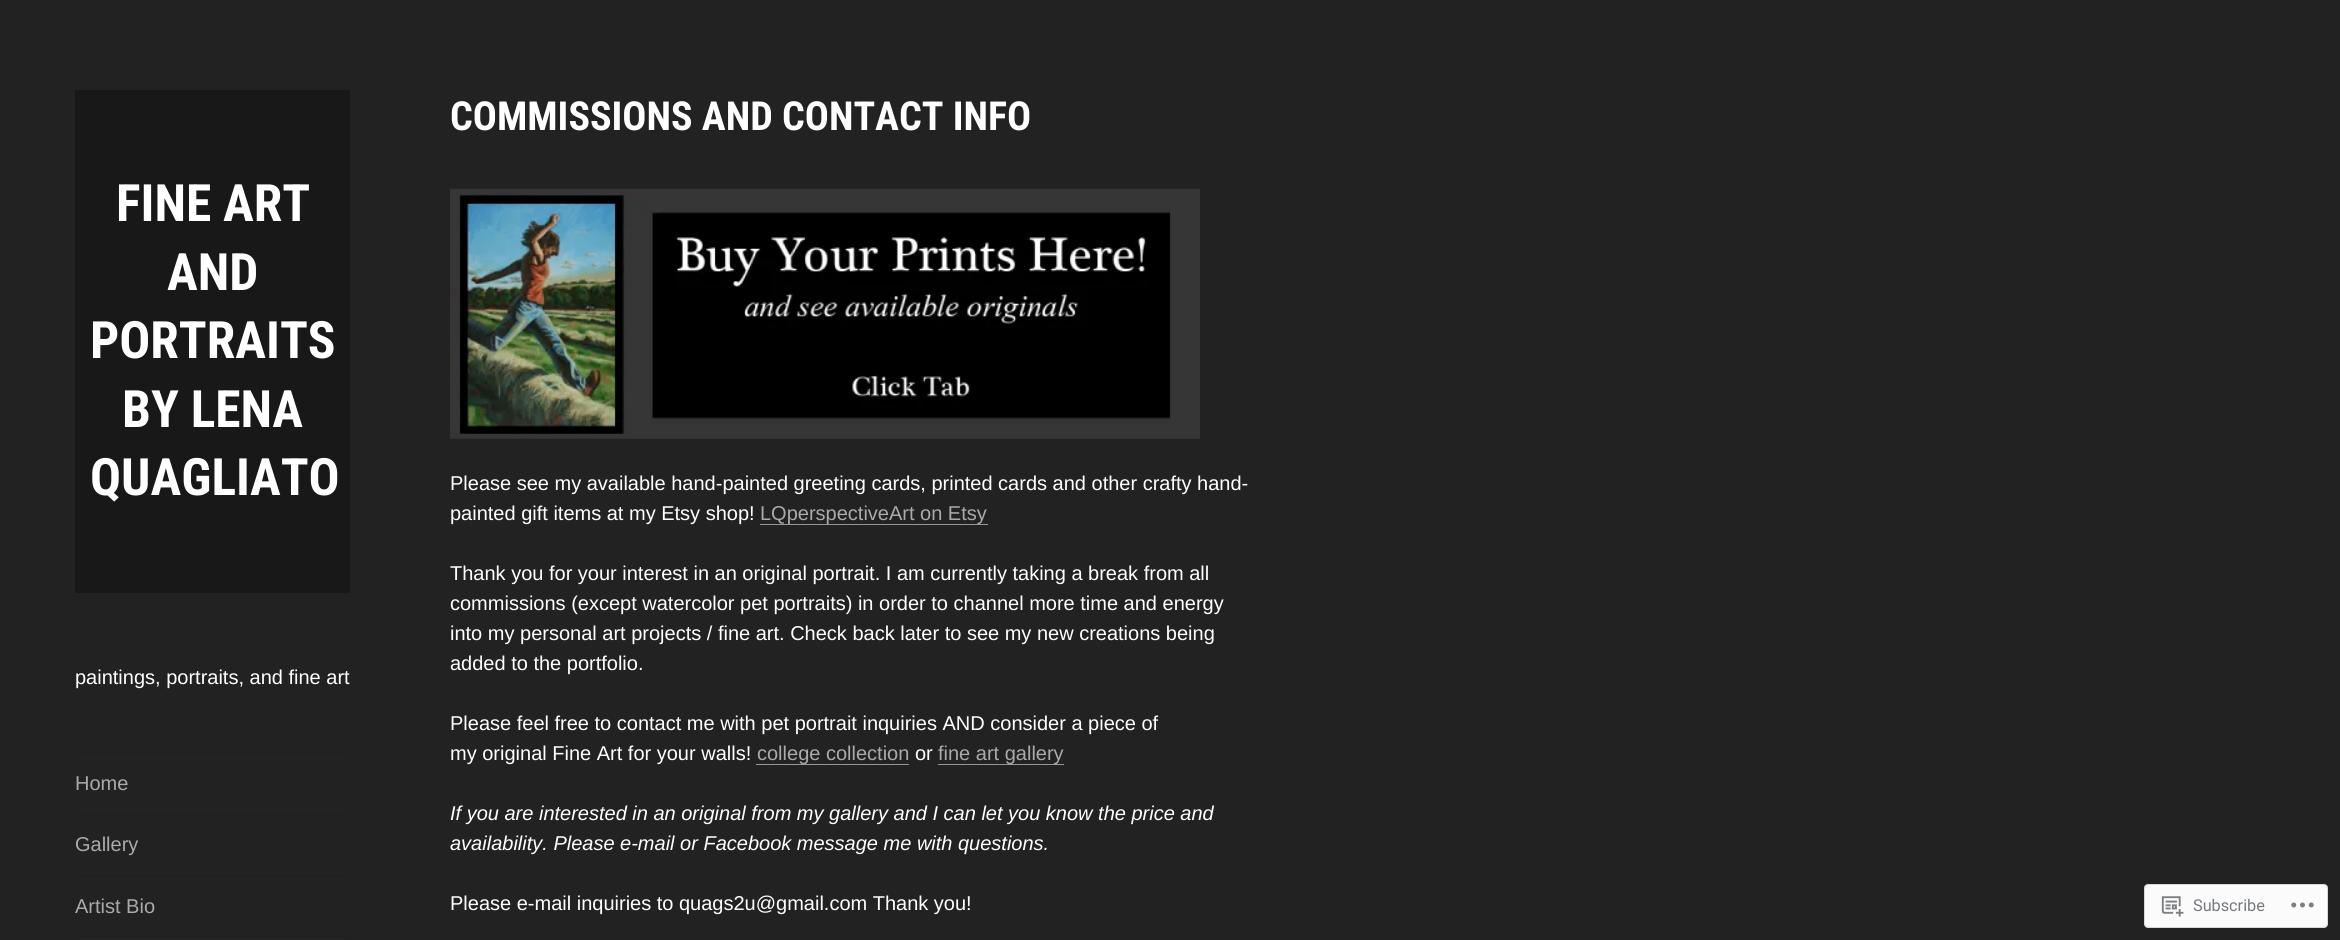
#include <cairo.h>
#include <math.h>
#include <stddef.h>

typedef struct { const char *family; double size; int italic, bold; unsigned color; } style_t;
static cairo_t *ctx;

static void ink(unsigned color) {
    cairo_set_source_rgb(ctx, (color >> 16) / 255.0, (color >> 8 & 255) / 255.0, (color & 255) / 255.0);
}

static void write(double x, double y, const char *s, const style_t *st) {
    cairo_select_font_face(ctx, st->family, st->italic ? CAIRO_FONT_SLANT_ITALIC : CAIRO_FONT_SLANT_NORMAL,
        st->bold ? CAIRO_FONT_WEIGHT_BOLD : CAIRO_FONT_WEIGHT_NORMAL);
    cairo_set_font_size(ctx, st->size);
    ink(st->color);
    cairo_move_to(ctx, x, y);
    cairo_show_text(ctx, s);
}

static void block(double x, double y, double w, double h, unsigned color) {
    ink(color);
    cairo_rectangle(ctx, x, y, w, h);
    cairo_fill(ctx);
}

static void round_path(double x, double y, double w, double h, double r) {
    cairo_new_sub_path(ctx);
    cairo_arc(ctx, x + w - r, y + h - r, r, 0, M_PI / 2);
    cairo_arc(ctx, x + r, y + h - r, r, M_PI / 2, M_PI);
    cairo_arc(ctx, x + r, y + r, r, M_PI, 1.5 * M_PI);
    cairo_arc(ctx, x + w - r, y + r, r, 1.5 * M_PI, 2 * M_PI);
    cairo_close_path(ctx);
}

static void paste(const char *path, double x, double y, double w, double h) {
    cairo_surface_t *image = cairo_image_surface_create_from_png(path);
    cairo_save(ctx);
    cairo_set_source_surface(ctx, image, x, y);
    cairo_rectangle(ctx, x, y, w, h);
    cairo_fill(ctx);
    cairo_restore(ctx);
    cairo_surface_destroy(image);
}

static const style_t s1 = {"Roboto Condensed", 51.5, 0, 1, 0xffffff};
static const style_t s2 = {"Arimo", 20, 0, 0, 0xffffff};
static const style_t s3 = {"Arimo", 20, 0, 0, 0xaaaaaa};
static const style_t s4 = {"Roboto Condensed", 40, 0, 1, 0xffffff};
static const style_t s5 = {"Arimo", 20, 1, 0, 0xffffff};
static const style_t s6 = {"Roboto", 16.25, 0, 0, 0x767a80};

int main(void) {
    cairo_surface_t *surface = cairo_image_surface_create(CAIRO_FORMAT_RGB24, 2340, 940);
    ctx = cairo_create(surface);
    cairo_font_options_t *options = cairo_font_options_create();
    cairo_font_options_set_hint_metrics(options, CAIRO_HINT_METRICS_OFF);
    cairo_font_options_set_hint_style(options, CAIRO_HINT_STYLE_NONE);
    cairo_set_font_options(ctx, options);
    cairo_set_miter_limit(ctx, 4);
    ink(0x222222);
    cairo_paint(ctx);
    block(75, 90, 275, 503, 0x181818);
    write(116, 221, "FINE ART", &s1);
    write(167, 290, "AND", &s1);
    write(90, 358, "PORTRAITS", &s1);
    write(122, 427, "BY LENA", &s1);
    write(90, 495, "QUAGLIATO", &s1);
    write(75, 684, "paintings, portraits, and fine art", &s2);
    block(75, 753, 275, 1, 0x1f1f1f);
    write(75, 790, "Home", &s3);
    block(75, 814, 275, 1, 0x1f1f1f);
    write(75, 851, "Gallery", &s3);
    block(75, 875, 275, 1, 0x1f1f1f);
    write(75, 913, "Artist Bio", &s3);
    block(75, 936, 275, 1, 0x1f1f1f);
    write(450, 130, "COMMISSIONS AND CONTACT INFO", &s4);
    paste("pic1.png", 450, 188, 750, 251);
    write(450, 490, "Please see my available hand-painted greeting cards, printed cards and other crafty hand-", &s2);
    write(450, 520, "painted gift items at my Etsy shop!", &s2);
    block(760, 524, 228, 1, 0x979797);
    write(760, 520, "LQperspectiveArt on Etsy", &s3);
    write(450, 580, "Thank you for your interest in an original portrait. I am currently taking a break from all", &s2);
    write(450, 610, "commissions (except watercolor pet portraits) in order to channel more time and energy", &s2);
    write(450, 640, "into my personal art projects / fine art. Check back later to see my new creations being", &s2);
    write(450, 670, "added to the portfolio.", &s2);
    write(450, 730, "Please feel free to contact me with pet portrait inquiries AND consider a piece of", &s2);
    write(450, 760, "my original Fine Art for your walls!", &s2);
    block(756, 764, 153, 1, 0x979797);
    write(757, 760, "college collection", &s3);
    write(915, 760, "or", &s2);
    block(938, 764, 126, 1, 0x979797);
    write(938, 760, "fine art gallery", &s3);
    write(450, 820, "If you are interested in an original from my gallery and I can let you know the price and", &s5);
    write(450, 850, "availability. Please e-mail or Facebook message me with questions.", &s5);
    write(450, 910, "Please e-mail inquiries to quags2u@gmail.com Thank you!", &s2);
    ink(0xfbfbfb);
    round_path(2144.5, 884.5, 183, 43, 3.5);
    cairo_fill_preserve(ctx);
    ink(0xd8d8da);
    cairo_set_line_width(ctx, 1);
    cairo_stroke(ctx);
    paste("pic2.png", 2161, 896, 23, 21);
    write(2193, 911, "Subscribe", &s6);
    paste("pic3.png", 2291, 902, 23, 6);
    cairo_surface_write_to_png(surface, "screenshot.png");
    cairo_font_options_destroy(options);
    cairo_destroy(ctx);
    cairo_surface_destroy(surface);
    return 0;
}
